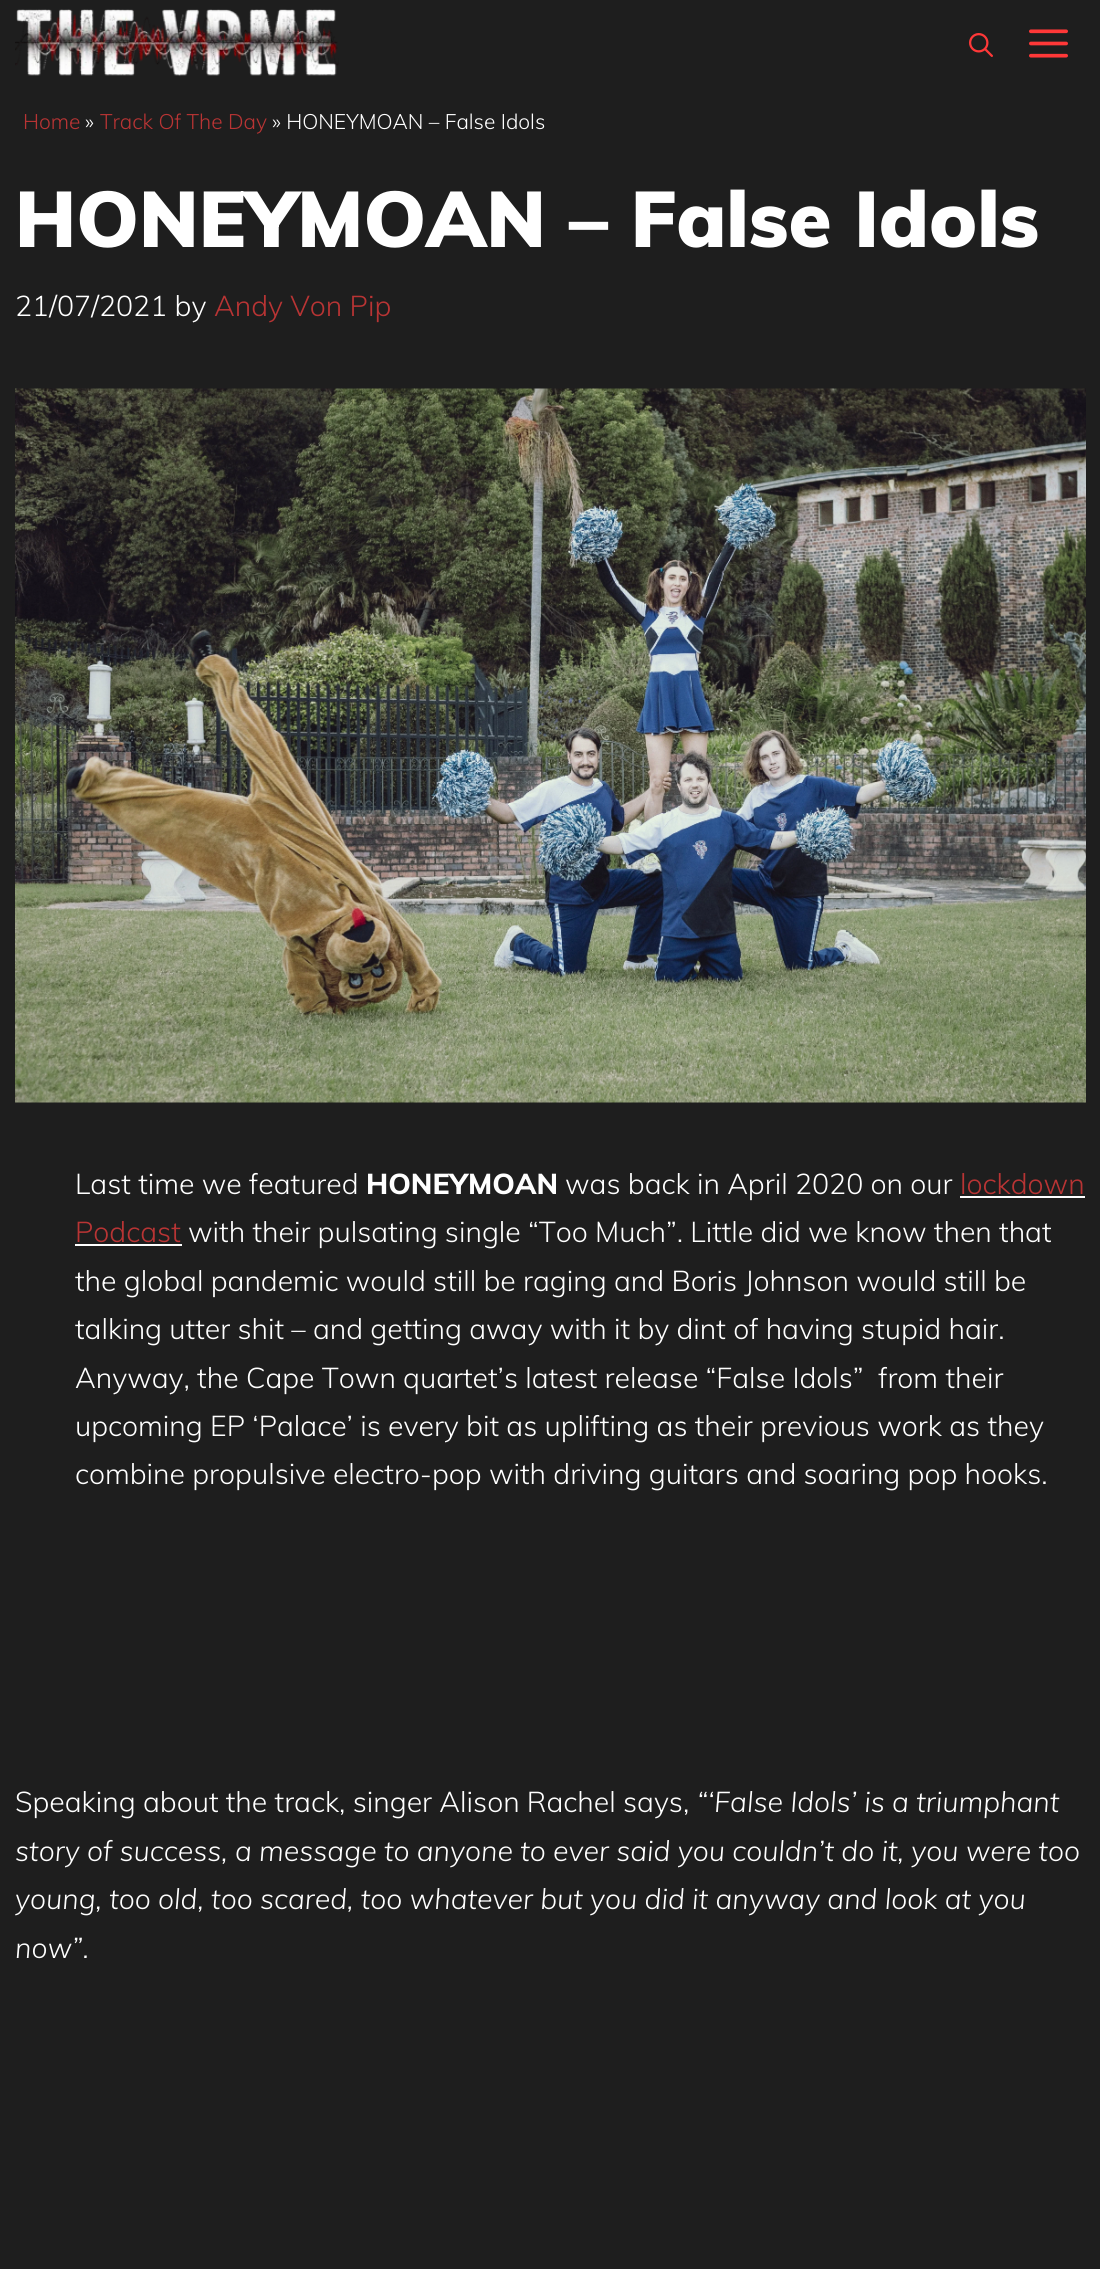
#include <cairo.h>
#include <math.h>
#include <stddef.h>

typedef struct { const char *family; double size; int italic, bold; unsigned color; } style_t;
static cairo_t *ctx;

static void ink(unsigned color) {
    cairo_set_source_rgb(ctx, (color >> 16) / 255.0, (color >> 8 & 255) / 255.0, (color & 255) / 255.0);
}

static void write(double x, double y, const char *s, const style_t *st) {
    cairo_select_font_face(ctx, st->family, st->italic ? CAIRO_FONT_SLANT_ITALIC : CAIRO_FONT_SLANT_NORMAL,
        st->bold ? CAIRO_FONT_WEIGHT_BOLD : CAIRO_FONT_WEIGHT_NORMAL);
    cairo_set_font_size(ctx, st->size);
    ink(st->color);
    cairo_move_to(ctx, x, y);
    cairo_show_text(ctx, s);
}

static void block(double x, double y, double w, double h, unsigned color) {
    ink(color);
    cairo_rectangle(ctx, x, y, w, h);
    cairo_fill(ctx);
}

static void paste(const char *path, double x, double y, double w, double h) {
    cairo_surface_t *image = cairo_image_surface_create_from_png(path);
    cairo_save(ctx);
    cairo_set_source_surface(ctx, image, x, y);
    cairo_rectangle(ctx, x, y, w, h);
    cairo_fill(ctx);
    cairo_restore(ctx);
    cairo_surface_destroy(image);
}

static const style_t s1 = {"Muli Light", 21, 0, 0, 0xb93434};
static const style_t s2 = {"Muli Light", 21, 0, 0, 0xffffff};
static const style_t s3 = {"Muli Black", 78, 0, 0, 0xffffff};
static const style_t s4 = {"Muli Light", 28.5, 0, 0, 0xffffff};
static const style_t s5 = {"Muli Light", 28.5, 0, 0, 0xb93434};
static const style_t s6 = {"Muli ExtraBold", 28.5, 0, 0, 0xffffff};
static const style_t s7 = {"Muli Light", 28.5, 1, 0, 0xffffff};

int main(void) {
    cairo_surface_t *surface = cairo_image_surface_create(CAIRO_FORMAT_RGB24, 1100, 2269);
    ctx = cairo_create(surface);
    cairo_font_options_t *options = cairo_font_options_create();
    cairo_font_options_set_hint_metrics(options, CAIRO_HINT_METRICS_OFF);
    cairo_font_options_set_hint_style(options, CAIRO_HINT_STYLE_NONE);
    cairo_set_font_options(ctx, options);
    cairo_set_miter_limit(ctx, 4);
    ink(0x1e1e1e);
    cairo_paint(ctx);
    paste("pic1.png", 15, 9, 324, 68);
    paste("pic2.png", 969, 33, 24, 24);
    paste("pic3.png", 1029, 29, 39, 29);
    write(23, 129, "Home", &s1);
    write(85, 129, "»", &s2);
    write(100, 129, "Track Of The Day", &s1);
    write(272, 129, "» HONEYMOAN – False Idols", &s2);
    write(15, 247, "HONEYMOAN – False Idols", &s3);
    write(15, 316, "21/07/2021 by", &s4);
    write(214, 316, "Andy Von Pip", &s5);
    paste("pic4.png", 15, 388, 1071, 715);
    write(75, 1194, "Last time we featured", &s4);
    write(366, 1194, "HONEYMOAN", &s6);
    write(565, 1194, "was back in April 2020 on our", &s4);
    write(960, 1194, "lockdown", &s5);
    block(960, 1196, 125, 2, 0xffffff);
    write(75, 1242, "Podcast", &s5);
    block(75, 1244, 107, 2, 0xffffff);
    write(188, 1242, "with their pulsating single “Too Much”. Little did we know then that", &s4);
    write(75, 1291, "the global pandemic would still be raging and Boris Johnson would still be", &s4);
    write(75, 1339, "talking utter shit – and getting away with it by dint of having stupid hair.", &s4);
    write(75, 1388, "Anyway, the Cape Town quartet’s latest release “False Idols”  from their", &s4);
    write(75, 1436, "upcoming EP ‘Palace’ is every bit as uplifting as their previous work as they", &s4);
    write(75, 1484, "combine propulsive electro-pop with driving guitars and soaring pop hooks.", &s4);
    write(15, 1812, "Speaking about the track, singer Alison Rachel says,", &s4);
    write(697, 1812, "“‘False Idols’ is a triumphant", &s7);
    write(15, 1861, "story of success, a message to anyone to ever said you couldn’t do it, you were too", &s7);
    write(15, 1909, "young, too old, too scared, too whatever but you did it anyway and look at you", &s7);
    write(15, 1958, "now”.", &s7);
    cairo_surface_write_to_png(surface, "screenshot.png");
    cairo_font_options_destroy(options);
    cairo_destroy(ctx);
    cairo_surface_destroy(surface);
    return 0;
}
